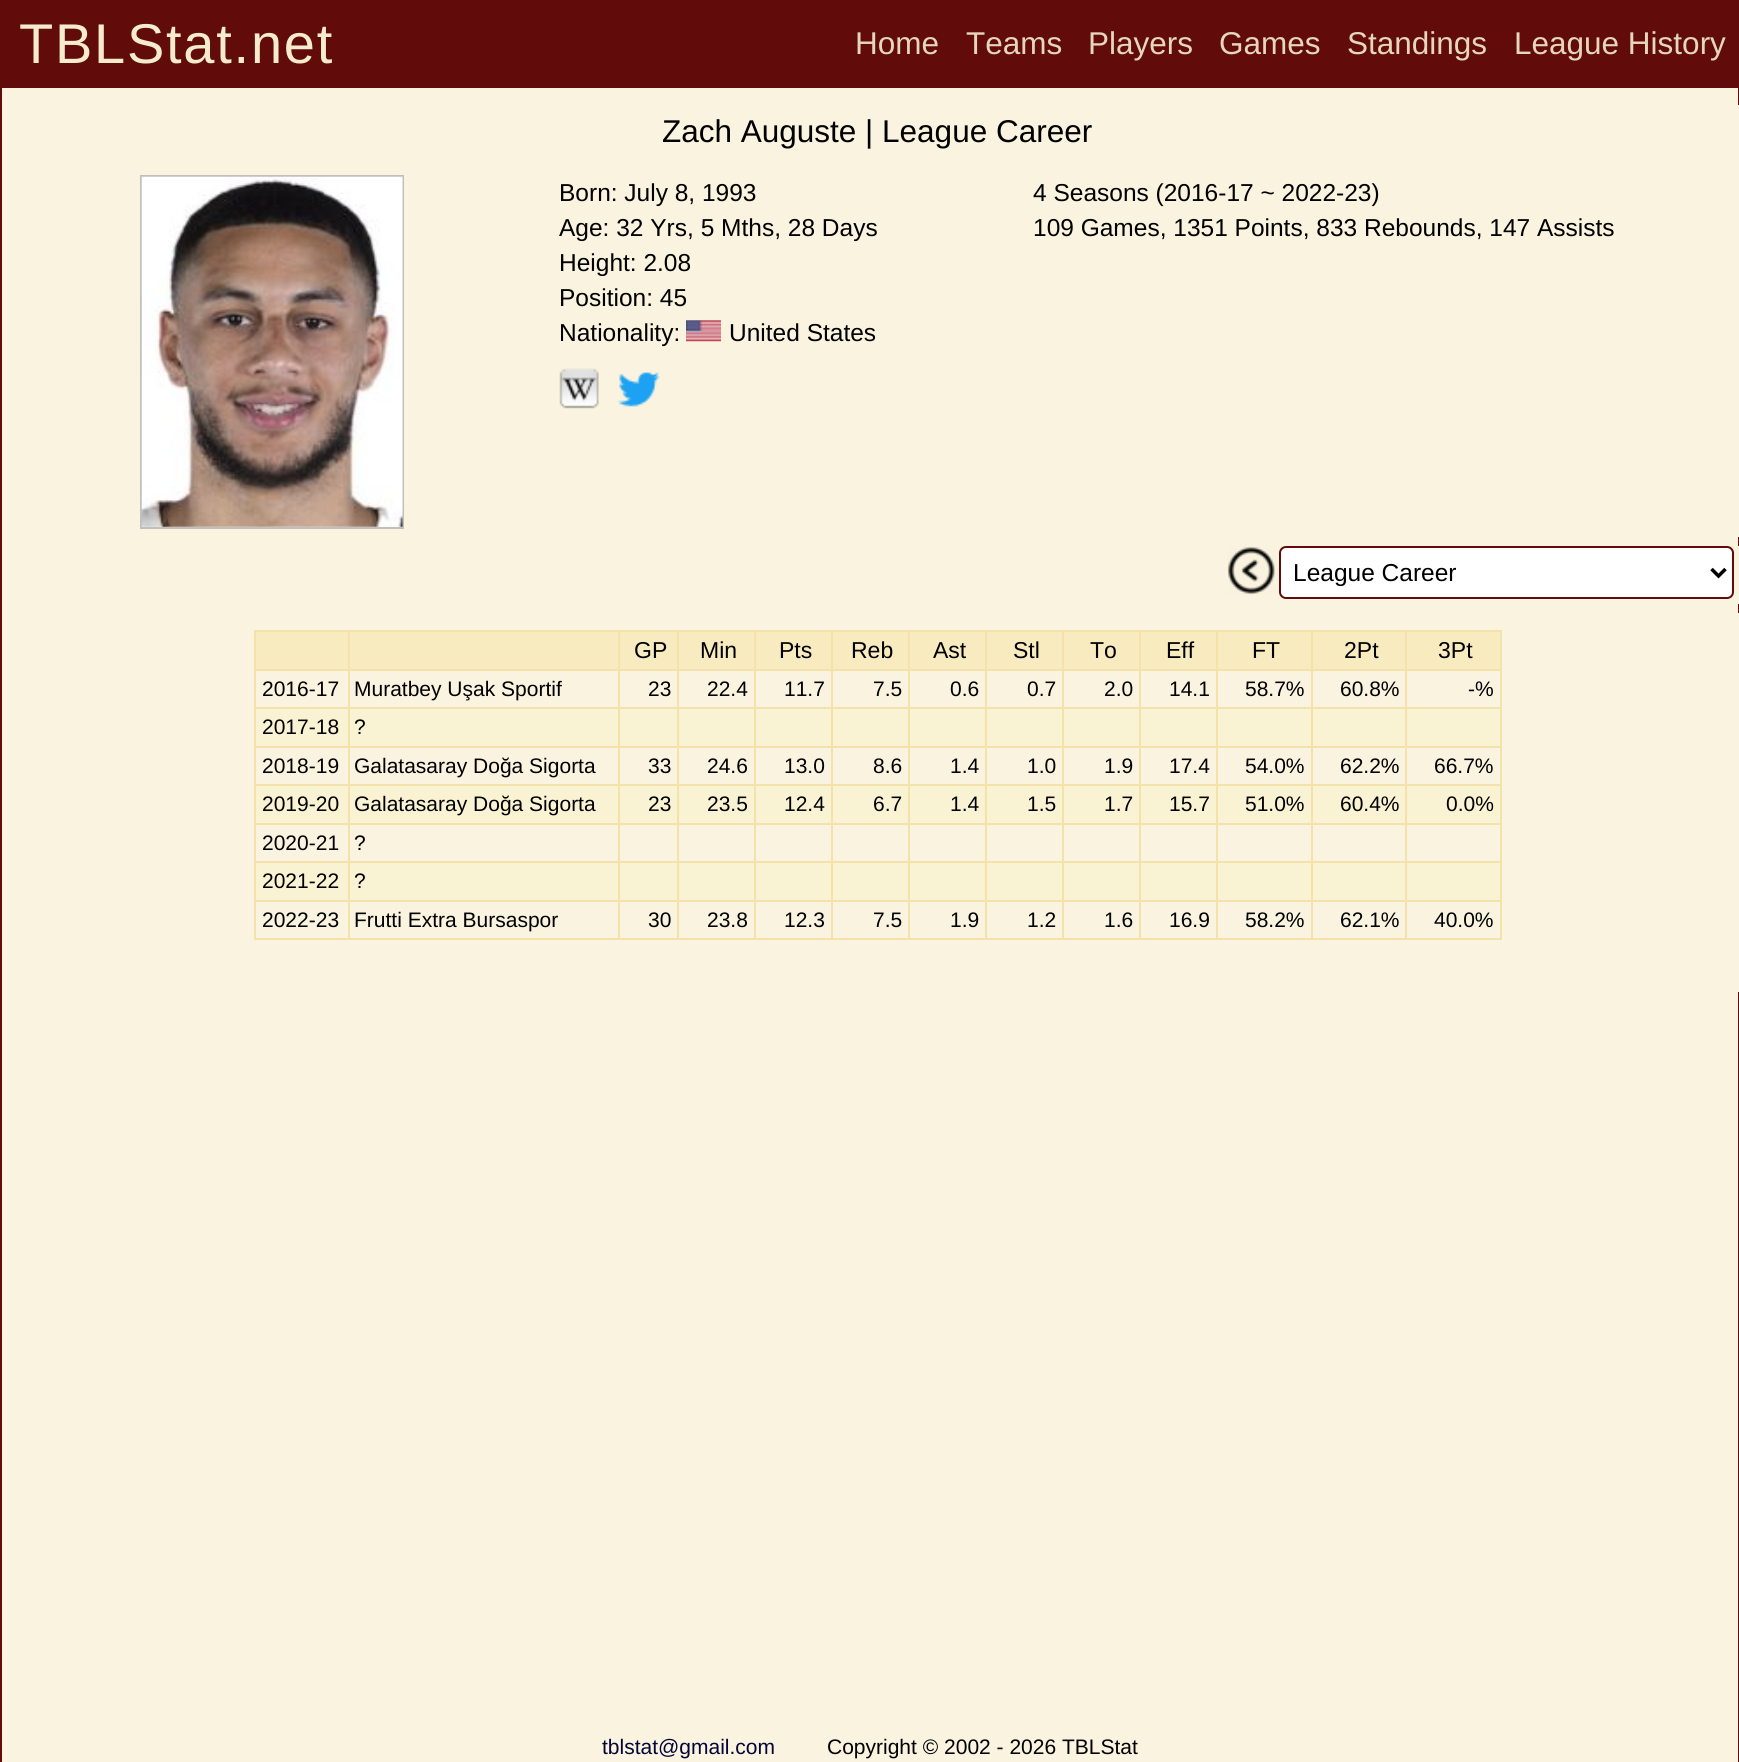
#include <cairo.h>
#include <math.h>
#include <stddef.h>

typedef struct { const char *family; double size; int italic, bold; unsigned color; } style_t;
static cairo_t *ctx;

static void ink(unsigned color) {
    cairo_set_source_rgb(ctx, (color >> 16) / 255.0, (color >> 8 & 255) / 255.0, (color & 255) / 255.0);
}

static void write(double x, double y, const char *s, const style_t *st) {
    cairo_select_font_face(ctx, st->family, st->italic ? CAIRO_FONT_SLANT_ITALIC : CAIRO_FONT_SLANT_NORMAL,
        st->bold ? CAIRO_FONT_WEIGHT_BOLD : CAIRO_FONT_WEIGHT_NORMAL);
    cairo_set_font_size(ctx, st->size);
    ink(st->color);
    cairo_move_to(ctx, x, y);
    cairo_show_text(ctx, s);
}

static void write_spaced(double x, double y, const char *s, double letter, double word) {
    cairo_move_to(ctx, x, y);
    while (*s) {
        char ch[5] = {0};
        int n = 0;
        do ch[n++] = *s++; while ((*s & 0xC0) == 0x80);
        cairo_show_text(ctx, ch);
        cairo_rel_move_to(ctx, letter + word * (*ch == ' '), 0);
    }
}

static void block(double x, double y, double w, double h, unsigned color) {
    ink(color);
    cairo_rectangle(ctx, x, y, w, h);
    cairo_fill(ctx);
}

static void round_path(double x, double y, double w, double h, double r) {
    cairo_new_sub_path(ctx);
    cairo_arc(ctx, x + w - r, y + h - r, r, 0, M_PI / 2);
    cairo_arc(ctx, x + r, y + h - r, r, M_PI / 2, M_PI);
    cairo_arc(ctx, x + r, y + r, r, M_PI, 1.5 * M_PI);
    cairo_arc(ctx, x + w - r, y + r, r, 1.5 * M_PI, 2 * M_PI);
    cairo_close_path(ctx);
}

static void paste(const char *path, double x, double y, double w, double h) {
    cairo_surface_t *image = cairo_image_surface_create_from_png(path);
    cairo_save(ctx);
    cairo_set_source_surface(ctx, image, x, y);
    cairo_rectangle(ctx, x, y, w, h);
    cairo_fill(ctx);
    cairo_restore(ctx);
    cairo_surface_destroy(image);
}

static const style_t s1 = {"Liberation Sans", 31.5, 0, 0, 0xe6d6bb};
static const style_t s2 = {"Liberation Sans", 31.5, 0, 0, 0x000000};
static const style_t s3 = {"Liberation Sans", 24.5, 0, 0, 0x000000};
static const style_t s4 = {"Liberation Sans", 23, 0, 0, 0x000000};
static const style_t s5 = {"Liberation Sans", 21, 0, 0, 0x000000};
static const style_t s6 = {"Liberation Sans", 21, 0, 0, 0x040438};

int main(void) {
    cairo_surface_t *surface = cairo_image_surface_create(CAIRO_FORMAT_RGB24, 1739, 1762);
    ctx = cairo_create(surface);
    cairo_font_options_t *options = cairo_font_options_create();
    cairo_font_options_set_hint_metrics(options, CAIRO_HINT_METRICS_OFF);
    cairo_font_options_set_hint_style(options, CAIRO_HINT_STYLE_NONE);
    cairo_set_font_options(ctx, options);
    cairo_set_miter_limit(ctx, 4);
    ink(0xf9f3df);
    cairo_paint(ctx);
    block(1738, 88, 1, 1674, 0x610b0b);
    block(0, 0, 2, 1762, 0x610b0b);
    block(2, 0, 1737, 88, 0x610b0b);
    cairo_select_font_face(ctx, "Liberation Sans", CAIRO_FONT_SLANT_NORMAL, CAIRO_FONT_WEIGHT_NORMAL);
    cairo_set_font_size(ctx, 56);
    ink(0xf5ecce);
    write_spaced(19, 63, "TBLStat.net", 1.75, 0);
    write(855, 54, "Home", &s1);
    write(966, 54, "Teams", &s1);
    write(1088, 54, "Players", &s1);
    write(1219, 54, "Games", &s1);
    write(1347, 54, "Standings", &s1);
    write(1514, 54, "League History", &s1);
    block(1738, 105, 1, 432, 0xf9f3df);
    write(662, 142, "Zach Auguste | League Career", &s2);
    cairo_rectangle(ctx, 141, 176, 262, 352);
    ink(0xc0c0c0);
    cairo_stroke(ctx);
    paste("pic1.png", 141, 176, 262, 351);
    write(559, 201, "Born: July 8, 1993", &s3);
    write(559, 236, "Age: 32 Yrs, 5 Mths, 28 Days", &s3);
    write(559, 271, "Height: 2.08", &s3);
    write(559, 306, "Position: 45", &s3);
    write(559, 341, "Nationality:", &s3);
    paste("pic2.png", 686, 320, 35, 22);
    write(729, 341, "United States", &s3);
    paste("pic3.png", 559, 368, 40, 41);
    paste("pic4.png", 617, 372, 43, 35);
    write(1033, 201, "4 Seasons (2016-17 ~ 2022-23)", &s3);
    write(1033, 236, "109 Games, 1351 Points, 833 Rebounds, 147 Assists", &s3);
    block(1738, 546, 1, 58, 0xf9f3df);
    paste("pic5.png", 1227, 546, 48, 49);
    ink(0xffffff);
    round_path(1280, 547, 453, 51, 6);
    cairo_fill_preserve(ctx);
    ink(0x610b0b);
    cairo_stroke(ctx);
    cairo_new_path(ctx);
    cairo_move_to(ctx, 1711.5, 569);
    cairo_line_to(ctx, 1718.5, 576);
    cairo_line_to(ctx, 1725.5, 569);
    ink(0x000000);
    cairo_set_line_width(ctx, 3.5);
    cairo_stroke(ctx);
    write(1293, 581, "League Career", &s3);
    block(1738, 613, 1, 379, 0xf9f3df);
    block(256, 632, 92, 37, 0xf8ebc0);
    block(1405, 630, 97, 2, 0xf3e2a9);
    block(1405, 669, 97, 2, 0xf3e2a9);
    block(1405, 707, 97, 2, 0xf3e2a9);
    block(1405, 746, 97, 2, 0xf3e2a9);
    block(1405, 784, 97, 2, 0xf3e2a9);
    block(1405, 823, 97, 2, 0xf3e2a9);
    block(1405, 861, 97, 2, 0xf3e2a9);
    block(1405, 900, 97, 2, 0xf3e2a9);
    block(1500, 900, 2, 40, 0xf3e2a9);
    block(1405, 938, 97, 2, 0xf3e2a9);
    block(1405, 900, 2, 40, 0xf3e2a9);
    block(1311, 900, 96, 2, 0xf3e2a9);
    block(1405, 861, 2, 40, 0xf3e2a9);
    block(1311, 861, 96, 2, 0xf3e2a9);
    block(1405, 823, 2, 40, 0xf3e2a9);
    block(1311, 823, 96, 2, 0xf3e2a9);
    block(1405, 784, 2, 40, 0xf3e2a9);
    block(1311, 784, 96, 2, 0xf3e2a9);
    block(1405, 746, 2, 40, 0xf3e2a9);
    block(1311, 746, 96, 2, 0xf3e2a9);
    block(1405, 707, 2, 40, 0xf3e2a9);
    block(1311, 707, 96, 2, 0xf3e2a9);
    block(1405, 669, 2, 40, 0xf3e2a9);
    block(1311, 669, 96, 2, 0xf3e2a9);
    block(1405, 630, 2, 40, 0xf3e2a9);
    block(1311, 630, 96, 2, 0xf3e2a9);
    block(1311, 938, 96, 2, 0xf3e2a9);
    block(1311, 900, 2, 40, 0xf3e2a9);
    block(1216, 900, 97, 2, 0xf3e2a9);
    block(1311, 861, 2, 40, 0xf3e2a9);
    block(1216, 861, 97, 2, 0xf3e2a9);
    block(1311, 823, 2, 40, 0xf3e2a9);
    block(1216, 823, 97, 2, 0xf3e2a9);
    block(1311, 784, 2, 40, 0xf3e2a9);
    block(1216, 784, 97, 2, 0xf3e2a9);
    block(1311, 746, 2, 40, 0xf3e2a9);
    block(1216, 746, 97, 2, 0xf3e2a9);
    block(1311, 707, 2, 40, 0xf3e2a9);
    block(1216, 707, 97, 2, 0xf3e2a9);
    block(1311, 669, 2, 40, 0xf3e2a9);
    block(1216, 669, 97, 2, 0xf3e2a9);
    block(1311, 630, 2, 40, 0xf3e2a9);
    block(1216, 630, 97, 2, 0xf3e2a9);
    block(1216, 938, 97, 2, 0xf3e2a9);
    block(1216, 900, 2, 40, 0xf3e2a9);
    block(1139, 900, 79, 2, 0xf3e2a9);
    block(1216, 861, 2, 40, 0xf3e2a9);
    block(1139, 861, 79, 2, 0xf3e2a9);
    block(1216, 823, 2, 40, 0xf3e2a9);
    block(1139, 823, 79, 2, 0xf3e2a9);
    block(1216, 784, 2, 40, 0xf3e2a9);
    block(1139, 784, 79, 2, 0xf3e2a9);
    block(1216, 746, 2, 40, 0xf3e2a9);
    block(1139, 746, 79, 2, 0xf3e2a9);
    block(1216, 707, 2, 40, 0xf3e2a9);
    block(1139, 707, 79, 2, 0xf3e2a9);
    block(1216, 669, 2, 40, 0xf3e2a9);
    block(1139, 669, 79, 2, 0xf3e2a9);
    block(1216, 630, 2, 40, 0xf3e2a9);
    block(1139, 630, 79, 2, 0xf3e2a9);
    block(1139, 938, 79, 2, 0xf3e2a9);
    block(1139, 900, 2, 40, 0xf3e2a9);
    block(1062, 900, 79, 2, 0xf3e2a9);
    block(1139, 861, 2, 40, 0xf3e2a9);
    block(1062, 861, 79, 2, 0xf3e2a9);
    block(1139, 823, 2, 40, 0xf3e2a9);
    block(1062, 823, 79, 2, 0xf3e2a9);
    block(1139, 784, 2, 40, 0xf3e2a9);
    block(1062, 784, 79, 2, 0xf3e2a9);
    block(1139, 746, 2, 40, 0xf3e2a9);
    block(1062, 746, 79, 2, 0xf3e2a9);
    block(1139, 707, 2, 40, 0xf3e2a9);
    block(1062, 707, 79, 2, 0xf3e2a9);
    block(1139, 669, 2, 40, 0xf3e2a9);
    block(1062, 669, 79, 2, 0xf3e2a9);
    block(1139, 630, 2, 40, 0xf3e2a9);
    block(1062, 630, 79, 2, 0xf3e2a9);
    block(1062, 938, 79, 2, 0xf3e2a9);
    block(1062, 900, 2, 40, 0xf3e2a9);
    block(985, 900, 79, 2, 0xf3e2a9);
    block(1062, 861, 2, 40, 0xf3e2a9);
    block(985, 861, 79, 2, 0xf3e2a9);
    block(1062, 823, 2, 40, 0xf3e2a9);
    block(985, 823, 79, 2, 0xf3e2a9);
    block(1062, 784, 2, 40, 0xf3e2a9);
    block(985, 784, 79, 2, 0xf3e2a9);
    block(1062, 746, 2, 40, 0xf3e2a9);
    block(985, 746, 79, 2, 0xf3e2a9);
    block(1062, 707, 2, 40, 0xf3e2a9);
    block(985, 707, 79, 2, 0xf3e2a9);
    block(1062, 669, 2, 40, 0xf3e2a9);
    block(985, 669, 79, 2, 0xf3e2a9);
    block(1062, 630, 2, 40, 0xf3e2a9);
    block(985, 630, 79, 2, 0xf3e2a9);
    block(985, 938, 79, 2, 0xf3e2a9);
    block(985, 900, 2, 40, 0xf3e2a9);
    block(908, 900, 79, 2, 0xf3e2a9);
    block(985, 861, 2, 40, 0xf3e2a9);
    block(908, 861, 79, 2, 0xf3e2a9);
    block(985, 823, 2, 40, 0xf3e2a9);
    block(908, 823, 79, 2, 0xf3e2a9);
    block(985, 784, 2, 40, 0xf3e2a9);
    block(908, 784, 79, 2, 0xf3e2a9);
    block(985, 746, 2, 40, 0xf3e2a9);
    block(908, 746, 79, 2, 0xf3e2a9);
    block(985, 707, 2, 40, 0xf3e2a9);
    block(908, 707, 79, 2, 0xf3e2a9);
    block(985, 669, 2, 40, 0xf3e2a9);
    block(908, 669, 79, 2, 0xf3e2a9);
    block(985, 630, 2, 40, 0xf3e2a9);
    block(908, 630, 79, 2, 0xf3e2a9);
    block(908, 938, 79, 2, 0xf3e2a9);
    block(908, 900, 2, 40, 0xf3e2a9);
    block(831, 900, 79, 2, 0xf3e2a9);
    block(908, 861, 2, 40, 0xf3e2a9);
    block(831, 861, 79, 2, 0xf3e2a9);
    block(908, 823, 2, 40, 0xf3e2a9);
    block(831, 823, 79, 2, 0xf3e2a9);
    block(908, 784, 2, 40, 0xf3e2a9);
    block(831, 784, 79, 2, 0xf3e2a9);
    block(908, 746, 2, 40, 0xf3e2a9);
    block(831, 746, 79, 2, 0xf3e2a9);
    block(908, 707, 2, 40, 0xf3e2a9);
    block(831, 707, 79, 2, 0xf3e2a9);
    block(908, 669, 2, 40, 0xf3e2a9);
    block(831, 669, 79, 2, 0xf3e2a9);
    block(908, 630, 2, 40, 0xf3e2a9);
    block(831, 630, 79, 2, 0xf3e2a9);
    block(831, 938, 79, 2, 0xf3e2a9);
    block(831, 900, 2, 40, 0xf3e2a9);
    block(754, 900, 79, 2, 0xf3e2a9);
    block(831, 861, 2, 40, 0xf3e2a9);
    block(754, 861, 79, 2, 0xf3e2a9);
    block(831, 823, 2, 40, 0xf3e2a9);
    block(754, 823, 79, 2, 0xf3e2a9);
    block(831, 784, 2, 40, 0xf3e2a9);
    block(754, 784, 79, 2, 0xf3e2a9);
    block(831, 746, 2, 40, 0xf3e2a9);
    block(754, 746, 79, 2, 0xf3e2a9);
    block(831, 707, 2, 40, 0xf3e2a9);
    block(754, 707, 79, 2, 0xf3e2a9);
    block(831, 669, 2, 40, 0xf3e2a9);
    block(754, 669, 79, 2, 0xf3e2a9);
    block(831, 630, 2, 40, 0xf3e2a9);
    block(754, 630, 79, 2, 0xf3e2a9);
    block(754, 938, 79, 2, 0xf3e2a9);
    block(754, 900, 2, 40, 0xf3e2a9);
    block(677, 900, 79, 2, 0xf3e2a9);
    block(754, 861, 2, 40, 0xf3e2a9);
    block(677, 861, 79, 2, 0xf3e2a9);
    block(754, 823, 2, 40, 0xf3e2a9);
    block(677, 823, 79, 2, 0xf3e2a9);
    block(754, 784, 2, 40, 0xf3e2a9);
    block(677, 784, 79, 2, 0xf3e2a9);
    block(754, 746, 2, 40, 0xf3e2a9);
    block(677, 746, 79, 2, 0xf3e2a9);
    block(754, 707, 2, 40, 0xf3e2a9);
    block(677, 707, 79, 2, 0xf3e2a9);
    block(754, 669, 2, 40, 0xf3e2a9);
    block(677, 669, 79, 2, 0xf3e2a9);
    block(754, 630, 2, 40, 0xf3e2a9);
    block(677, 630, 79, 2, 0xf3e2a9);
    block(677, 938, 79, 2, 0xf3e2a9);
    block(677, 900, 2, 40, 0xf3e2a9);
    block(618, 900, 61, 2, 0xf3e2a9);
    block(677, 861, 2, 40, 0xf3e2a9);
    block(618, 861, 61, 2, 0xf3e2a9);
    block(677, 823, 2, 40, 0xf3e2a9);
    block(618, 823, 61, 2, 0xf3e2a9);
    block(677, 784, 2, 40, 0xf3e2a9);
    block(618, 784, 61, 2, 0xf3e2a9);
    block(677, 746, 2, 40, 0xf3e2a9);
    block(618, 746, 61, 2, 0xf3e2a9);
    block(677, 707, 2, 40, 0xf3e2a9);
    block(618, 707, 61, 2, 0xf3e2a9);
    block(677, 669, 2, 40, 0xf3e2a9);
    block(618, 669, 61, 2, 0xf3e2a9);
    block(677, 630, 2, 40, 0xf3e2a9);
    block(618, 630, 61, 2, 0xf3e2a9);
    block(618, 938, 61, 2, 0xf3e2a9);
    block(618, 900, 2, 40, 0xf3e2a9);
    block(348, 900, 272, 2, 0xf3e2a9);
    block(618, 861, 2, 40, 0xf3e2a9);
    block(348, 861, 272, 2, 0xf3e2a9);
    block(618, 823, 2, 40, 0xf3e2a9);
    block(348, 823, 272, 2, 0xf3e2a9);
    block(618, 784, 2, 40, 0xf3e2a9);
    block(348, 784, 272, 2, 0xf3e2a9);
    block(618, 746, 2, 40, 0xf3e2a9);
    block(348, 746, 272, 2, 0xf3e2a9);
    block(618, 707, 2, 40, 0xf3e2a9);
    block(348, 707, 272, 2, 0xf3e2a9);
    block(618, 669, 2, 40, 0xf3e2a9);
    block(348, 669, 272, 2, 0xf3e2a9);
    block(618, 630, 2, 40, 0xf3e2a9);
    block(348, 630, 272, 2, 0xf3e2a9);
    block(348, 938, 272, 2, 0xf3e2a9);
    block(348, 900, 2, 40, 0xf3e2a9);
    block(254, 900, 96, 2, 0xf3e2a9);
    block(348, 861, 2, 40, 0xf3e2a9);
    block(254, 861, 96, 2, 0xf3e2a9);
    block(348, 823, 2, 40, 0xf3e2a9);
    block(254, 823, 96, 2, 0xf3e2a9);
    block(348, 784, 2, 40, 0xf3e2a9);
    block(254, 784, 96, 2, 0xf3e2a9);
    block(348, 746, 2, 40, 0xf3e2a9);
    block(254, 746, 96, 2, 0xf3e2a9);
    block(348, 707, 2, 40, 0xf3e2a9);
    block(254, 707, 96, 2, 0xf3e2a9);
    block(348, 669, 2, 40, 0xf3e2a9);
    block(254, 669, 96, 2, 0xf3e2a9);
    block(348, 630, 2, 40, 0xf3e2a9);
    block(254, 630, 96, 2, 0xf3e2a9);
    block(254, 938, 96, 2, 0xf3e2a9);
    block(254, 900, 2, 40, 0xf3e2a9);
    block(254, 861, 2, 40, 0xf3e2a9);
    block(254, 823, 2, 40, 0xf3e2a9);
    block(254, 784, 2, 40, 0xf3e2a9);
    block(254, 746, 2, 40, 0xf3e2a9);
    block(254, 707, 2, 40, 0xf3e2a9);
    block(254, 669, 2, 40, 0xf3e2a9);
    block(254, 630, 2, 40, 0xf3e2a9);
    block(350, 632, 268, 37, 0xf8ebc0);
    block(620, 632, 57, 37, 0xf8ebc0);
    write(634, 658, "GP", &s4);
    block(679, 632, 75, 37, 0xf8ebc0);
    write(700, 658, "Min", &s4);
    block(756, 632, 75, 37, 0xf8ebc0);
    write(779, 658, "Pts", &s4);
    block(833, 632, 75, 37, 0xf8ebc0);
    write(851, 658, "Reb", &s4);
    block(910, 632, 75, 37, 0xf8ebc0);
    write(933, 658, "Ast", &s4);
    block(987, 632, 75, 37, 0xf8ebc0);
    write(1013, 658, "Stl", &s4);
    block(1064, 632, 75, 37, 0xf8ebc0);
    write(1090, 658, "To", &s4);
    block(1141, 632, 75, 37, 0xf8ebc0);
    write(1166, 658, "Eff", &s4);
    block(1218, 632, 93, 37, 0xf8ebc0);
    write(1252, 658, "FT", &s4);
    block(1313, 632, 92, 37, 0xf8ebc0);
    write(1344, 658, "2Pt", &s4);
    block(1407, 632, 93, 37, 0xf8ebc0);
    block(1500, 861, 2, 40, 0xf3e2a9);
    block(1500, 823, 2, 40, 0xf3e2a9);
    block(1500, 784, 2, 40, 0xf3e2a9);
    block(1500, 746, 2, 40, 0xf3e2a9);
    block(1500, 707, 2, 40, 0xf3e2a9);
    block(1500, 669, 2, 40, 0xf3e2a9);
    block(1500, 630, 2, 40, 0xf3e2a9);
    write(1438, 658, "3Pt", &s4);
    write(262, 696, "2016-17", &s5);
    write(354, 696, "Muratbey Uşak Sportif", &s5);
    write(648, 696, "23", &s5);
    write(707, 696, "22.4", &s5);
    write(784, 696, "11.7", &s5);
    write(873, 696, "7.5", &s5);
    write(950, 696, "0.6", &s5);
    write(1027, 696, "0.7", &s5);
    write(1104, 696, "2.0", &s5);
    write(1169, 696, "14.1", &s5);
    write(1245, 696, "58.7%", &s5);
    write(1340, 696, "60.8%", &s5);
    write(1468, 696, "-%", &s5);
    block(256, 709, 92, 37, 0xf9f3d3);
    write(262, 734, "2017-18", &s5);
    block(350, 709, 268, 37, 0xf9f3d3);
    write(354, 734, "?", &s5);
    block(620, 709, 57, 37, 0xf9f3d3);
    block(679, 709, 75, 37, 0xf9f3d3);
    block(756, 709, 75, 37, 0xf9f3d3);
    block(833, 709, 75, 37, 0xf9f3d3);
    block(910, 709, 75, 37, 0xf9f3d3);
    block(987, 709, 75, 37, 0xf9f3d3);
    block(1064, 709, 75, 37, 0xf9f3d3);
    block(1141, 709, 75, 37, 0xf9f3d3);
    block(1218, 709, 93, 37, 0xf9f3d3);
    block(1313, 709, 92, 37, 0xf9f3d3);
    block(1407, 709, 93, 37, 0xf9f3d3);
    write(262, 773, "2018-19", &s5);
    write(354, 773, "Galatasaray Doğa Sigorta", &s5);
    write(648, 773, "33", &s5);
    write(707, 773, "24.6", &s5);
    write(784, 773, "13.0", &s5);
    write(873, 773, "8.6", &s5);
    write(950, 773, "1.4", &s5);
    write(1027, 773, "1.0", &s5);
    write(1104, 773, "1.9", &s5);
    write(1169, 773, "17.4", &s5);
    write(1245, 773, "54.0%", &s5);
    write(1340, 773, "62.2%", &s5);
    write(1434, 773, "66.7%", &s5);
    block(256, 786, 92, 37, 0xf9f3d3);
    write(262, 811, "2019-20", &s5);
    block(350, 786, 268, 37, 0xf9f3d3);
    write(354, 811, "Galatasaray Doğa Sigorta", &s5);
    block(620, 786, 57, 37, 0xf9f3d3);
    write(648, 811, "23", &s5);
    block(679, 786, 75, 37, 0xf9f3d3);
    write(707, 811, "23.5", &s5);
    block(756, 786, 75, 37, 0xf9f3d3);
    write(784, 811, "12.4", &s5);
    block(833, 786, 75, 37, 0xf9f3d3);
    write(873, 811, "6.7", &s5);
    block(910, 786, 75, 37, 0xf9f3d3);
    write(950, 811, "1.4", &s5);
    block(987, 786, 75, 37, 0xf9f3d3);
    write(1027, 811, "1.5", &s5);
    block(1064, 786, 75, 37, 0xf9f3d3);
    write(1104, 811, "1.7", &s5);
    block(1141, 786, 75, 37, 0xf9f3d3);
    write(1169, 811, "15.7", &s5);
    block(1218, 786, 93, 37, 0xf9f3d3);
    write(1245, 811, "51.0%", &s5);
    block(1313, 786, 92, 37, 0xf9f3d3);
    write(1340, 811, "60.4%", &s5);
    block(1407, 786, 93, 37, 0xf9f3d3);
    write(1446, 811, "0.0%", &s5);
    write(262, 850, "2020-21", &s5);
    write(354, 850, "?", &s5);
    block(256, 863, 92, 37, 0xf9f3d3);
    write(262, 888, "2021-22", &s5);
    block(350, 863, 268, 37, 0xf9f3d3);
    write(354, 888, "?", &s5);
    block(620, 863, 57, 37, 0xf9f3d3);
    block(679, 863, 75, 37, 0xf9f3d3);
    block(756, 863, 75, 37, 0xf9f3d3);
    block(833, 863, 75, 37, 0xf9f3d3);
    block(910, 863, 75, 37, 0xf9f3d3);
    block(987, 863, 75, 37, 0xf9f3d3);
    block(1064, 863, 75, 37, 0xf9f3d3);
    block(1141, 863, 75, 37, 0xf9f3d3);
    block(1218, 863, 93, 37, 0xf9f3d3);
    block(1313, 863, 92, 37, 0xf9f3d3);
    block(1407, 863, 93, 37, 0xf9f3d3);
    write(262, 927, "2022-23", &s5);
    write(354, 927, "Frutti Extra Bursaspor", &s5);
    write(648, 927, "30", &s5);
    write(707, 927, "23.8", &s5);
    write(784, 927, "12.3", &s5);
    write(873, 927, "7.5", &s5);
    write(950, 927, "1.9", &s5);
    write(1027, 927, "1.2", &s5);
    write(1104, 927, "1.6", &s5);
    write(1169, 927, "16.9", &s5);
    write(1245, 927, "58.2%", &s5);
    write(1340, 927, "62.1%", &s5);
    write(1434, 927, "40.0%", &s5);
    write(602, 1754, "tblstat@gmail.com", &s6);
    write(827, 1754, "Copyright © 2002 - 2026 TBLStat", &s5);
    cairo_surface_write_to_png(surface, "screenshot.png");
    cairo_font_options_destroy(options);
    cairo_destroy(ctx);
    cairo_surface_destroy(surface);
    return 0;
}
